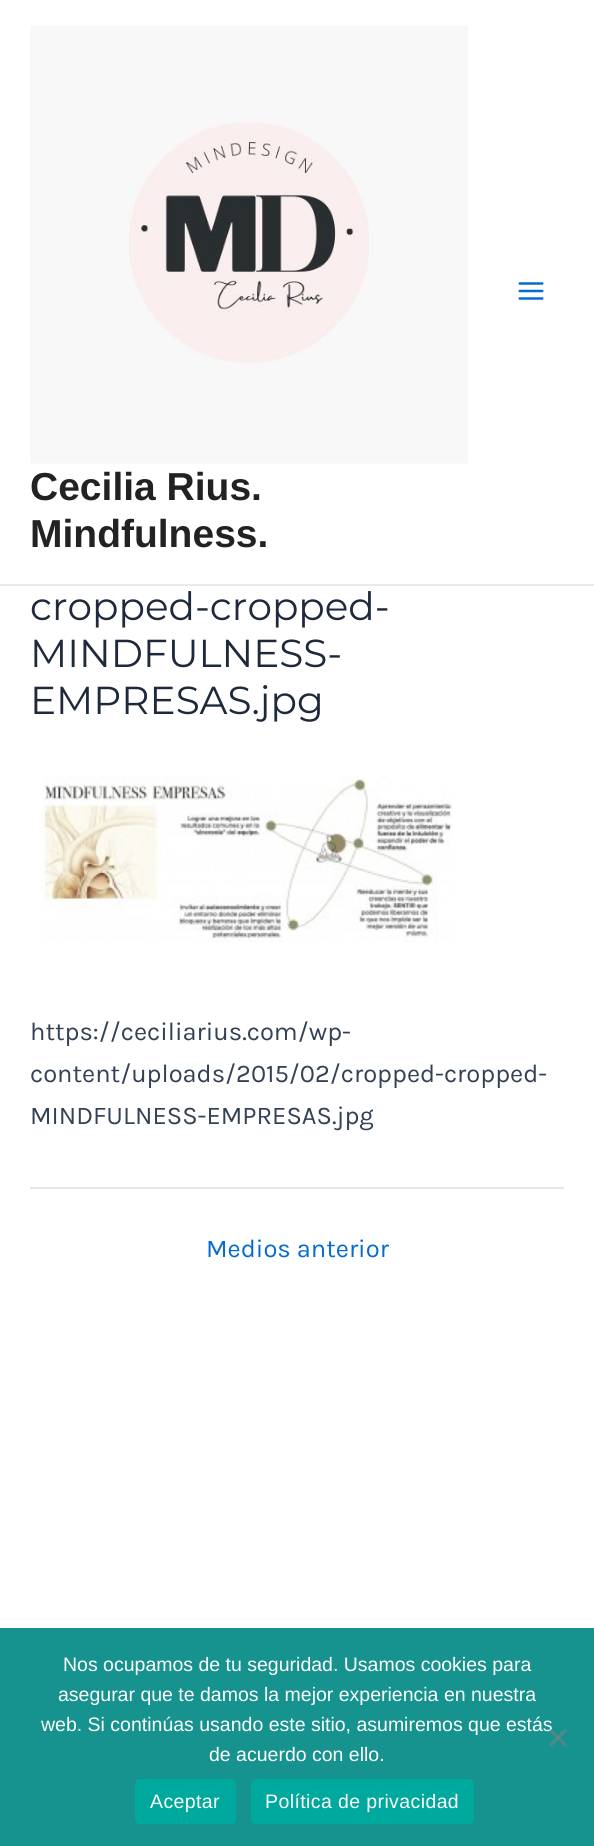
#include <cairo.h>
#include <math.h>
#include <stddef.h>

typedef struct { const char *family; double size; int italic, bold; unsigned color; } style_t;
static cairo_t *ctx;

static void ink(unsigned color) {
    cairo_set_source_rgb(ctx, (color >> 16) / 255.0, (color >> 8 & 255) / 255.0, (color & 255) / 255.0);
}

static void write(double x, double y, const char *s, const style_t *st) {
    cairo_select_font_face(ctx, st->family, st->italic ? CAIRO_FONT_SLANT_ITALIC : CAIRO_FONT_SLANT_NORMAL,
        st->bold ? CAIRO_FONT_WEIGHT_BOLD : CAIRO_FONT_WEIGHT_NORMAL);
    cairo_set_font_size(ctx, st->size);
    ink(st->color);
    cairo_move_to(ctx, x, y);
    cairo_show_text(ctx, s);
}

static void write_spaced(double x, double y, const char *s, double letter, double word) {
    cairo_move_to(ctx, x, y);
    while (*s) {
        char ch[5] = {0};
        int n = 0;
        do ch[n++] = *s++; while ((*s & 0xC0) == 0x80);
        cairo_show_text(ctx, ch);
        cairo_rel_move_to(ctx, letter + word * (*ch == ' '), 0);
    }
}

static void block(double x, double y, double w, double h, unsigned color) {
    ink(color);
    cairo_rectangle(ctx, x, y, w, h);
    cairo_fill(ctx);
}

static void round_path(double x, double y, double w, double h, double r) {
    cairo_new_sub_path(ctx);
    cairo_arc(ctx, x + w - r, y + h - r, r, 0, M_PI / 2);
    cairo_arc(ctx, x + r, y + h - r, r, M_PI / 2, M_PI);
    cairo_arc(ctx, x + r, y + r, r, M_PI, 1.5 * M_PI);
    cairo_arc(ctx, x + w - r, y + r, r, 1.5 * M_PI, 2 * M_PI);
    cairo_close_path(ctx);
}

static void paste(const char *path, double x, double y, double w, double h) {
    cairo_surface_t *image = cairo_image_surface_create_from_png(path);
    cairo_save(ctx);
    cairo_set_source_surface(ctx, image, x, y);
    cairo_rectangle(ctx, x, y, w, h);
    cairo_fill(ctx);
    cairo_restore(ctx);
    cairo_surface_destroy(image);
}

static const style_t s1 = {"Liberation Sans", 39, 0, 1, 0x222222};
static const style_t s2 = {"Montserrat", 39, 0, 0, 0x1e293b};
static const style_t s3 = {"Karla", 25.5, 0, 0, 0x334155};
static const style_t s4 = {"Karla", 25.5, 0, 0, 0x046bd2};
static const style_t s5 = {"Liberation Sans", 19.5, 0, 0, 0xffffff};

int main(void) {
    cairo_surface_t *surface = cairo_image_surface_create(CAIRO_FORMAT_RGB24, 594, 1846);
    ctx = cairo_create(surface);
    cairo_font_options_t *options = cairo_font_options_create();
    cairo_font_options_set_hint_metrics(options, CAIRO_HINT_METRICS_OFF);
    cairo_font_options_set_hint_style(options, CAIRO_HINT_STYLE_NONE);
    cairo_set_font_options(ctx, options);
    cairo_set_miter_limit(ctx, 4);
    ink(0xffffff);
    cairo_paint(ctx);
    block(0, 584, 594, 2, 0xeaeaea);
    paste("pic1.png", 518, 282, 26, 18);
    paste("pic2.png", 30, 25, 438, 439);
    write(30, 500, "Cecilia Rius.", &s1);
    write(30, 547, "Mindfulness.", &s1);
    write(30, 620, "cropped-cropped-", &s2);
    write(30, 667, "MINDFULNESS-", &s2);
    write(30, 714, "EMPRESAS.jpg", &s2);
    paste("pic3.png", 41, 775, 412, 168);
    write(30, 1040, "https://ceciliarius.com/wp-", &s3);
    write(30, 1082, "content/uploads/2015/02/cropped-cropped-", &s3);
    write(30, 1124, "MINDFULNESS-EMPRESAS.jpg", &s3);
    block(30, 1187, 534, 2, 0xe2e8f0);
    write(206, 1257, "Medios anterior", &s4);
    block(0, 1628, 594, 218, 0x17938f);
    write(63, 1671, "Nos ocupamos de tu seguridad. Usamos cookies para", &s5);
    write(58, 1701, "asegurar que te damos la mejor experiencia en nuestra", &s5);
    write(41, 1731, "web. Si continúas usando este sitio, asumiremos que estás", &s5);
    write(209, 1761, "de acuerdo con ello.", &s5);
    ink(0x4c8a88);
    cairo_new_path(ctx);
    cairo_move_to(ctx, 565, 1728.5);
    cairo_line_to(ctx, 567, 1731);
    cairo_line_to(ctx, 551, 1747);
    cairo_line_to(ctx, 549, 1744.5);
    cairo_close_path(ctx);
    cairo_fill(ctx);
    cairo_set_source_rgba(ctx, 0.502, 0.502, 0.502, 0.5);
    cairo_new_path(ctx);
    cairo_move_to(ctx, 549, 1731);
    cairo_line_to(ctx, 551, 1728.5);
    cairo_line_to(ctx, 567, 1744.5);
    cairo_line_to(ctx, 565, 1747);
    cairo_close_path(ctx);
    cairo_fill(ctx);
    ink(0x00a99d);
    round_path(135, 1779, 101, 45, 5);
    cairo_fill(ctx);
    ink(0xffffff);
    write_spaced(150, 1808, "Aceptar", 0.4, 0);
    ink(0x00a99d);
    round_path(251, 1779, 223, 45, 5);
    cairo_fill(ctx);
    ink(0xffffff);
    write_spaced(265, 1808, "Política de privacidad", 0.4, 0);
    cairo_surface_write_to_png(surface, "screenshot.png");
    cairo_font_options_destroy(options);
    cairo_destroy(ctx);
    cairo_surface_destroy(surface);
    return 0;
}
